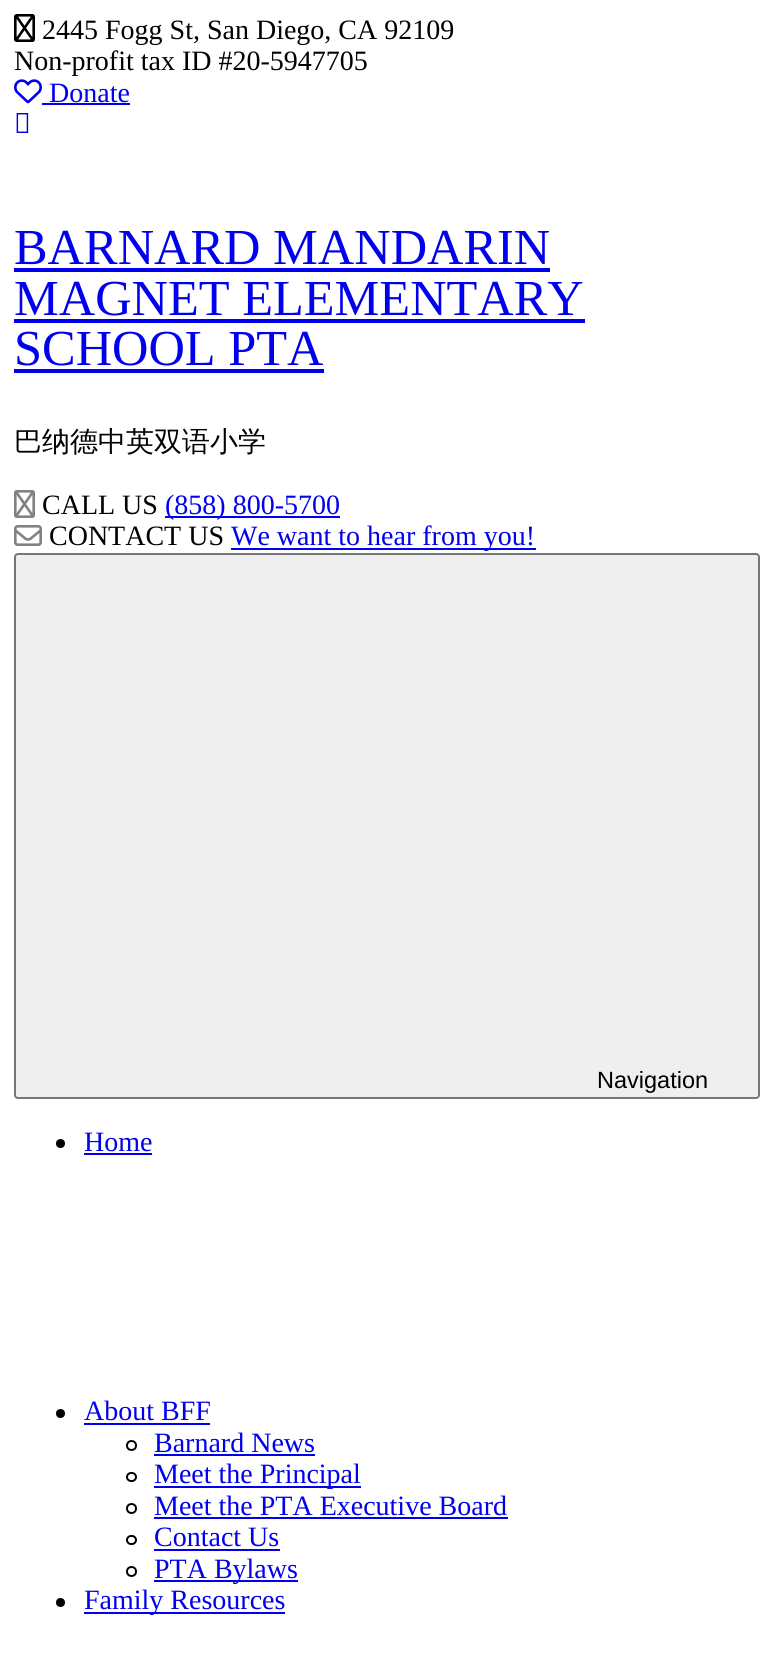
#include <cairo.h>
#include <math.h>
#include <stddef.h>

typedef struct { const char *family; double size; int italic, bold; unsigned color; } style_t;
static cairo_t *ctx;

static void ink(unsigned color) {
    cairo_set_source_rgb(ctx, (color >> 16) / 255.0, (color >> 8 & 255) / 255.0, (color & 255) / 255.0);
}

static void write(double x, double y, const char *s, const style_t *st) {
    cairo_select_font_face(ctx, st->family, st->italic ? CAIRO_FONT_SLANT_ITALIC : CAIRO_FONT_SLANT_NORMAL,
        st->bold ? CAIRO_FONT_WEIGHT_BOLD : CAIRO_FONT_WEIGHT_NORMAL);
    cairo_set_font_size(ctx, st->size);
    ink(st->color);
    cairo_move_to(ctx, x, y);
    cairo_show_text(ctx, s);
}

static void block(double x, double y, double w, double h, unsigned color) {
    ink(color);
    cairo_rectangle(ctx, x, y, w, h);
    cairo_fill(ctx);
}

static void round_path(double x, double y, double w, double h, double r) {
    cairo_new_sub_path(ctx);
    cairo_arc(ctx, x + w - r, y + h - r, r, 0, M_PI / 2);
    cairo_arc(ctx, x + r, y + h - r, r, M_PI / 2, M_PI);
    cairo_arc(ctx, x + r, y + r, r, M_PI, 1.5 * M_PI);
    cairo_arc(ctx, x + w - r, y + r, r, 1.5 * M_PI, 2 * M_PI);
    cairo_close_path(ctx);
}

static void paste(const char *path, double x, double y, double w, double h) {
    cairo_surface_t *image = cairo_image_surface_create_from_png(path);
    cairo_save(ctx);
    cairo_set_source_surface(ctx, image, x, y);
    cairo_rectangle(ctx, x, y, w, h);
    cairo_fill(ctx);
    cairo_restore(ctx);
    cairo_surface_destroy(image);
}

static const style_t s1 = {"Liberation Serif", 28, 0, 0, 0x000000};
static const style_t s2 = {"Liberation Serif", 28, 0, 0, 0x0000ee};
static const style_t s3 = {"Liberation Serif", 50.4, 0, 0, 0x0000ee};
static const style_t s4 = {"WenQuanYi Zen Hei Medium", 28, 0, 0, 0x000000};
static const style_t s5 = {"Liberation Sans", 23.5, 0, 0, 0x000000};

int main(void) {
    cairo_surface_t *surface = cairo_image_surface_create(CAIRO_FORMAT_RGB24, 772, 1668);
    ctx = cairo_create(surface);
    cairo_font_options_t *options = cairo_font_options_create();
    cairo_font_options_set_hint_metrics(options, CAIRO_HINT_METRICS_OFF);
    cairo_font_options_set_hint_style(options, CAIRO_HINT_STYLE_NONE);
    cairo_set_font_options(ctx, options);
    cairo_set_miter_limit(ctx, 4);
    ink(0xffffff);
    cairo_paint(ctx);
    paste("pic1.png", 14, 14, 21, 28);
    write(42, 39, "2445 Fogg St, San Diego, CA 92109", &s1);
    write(14, 70, "Non-profit tax ID #20-5947705", &s1);
    paste("pic2.png", 14, 79, 28, 25);
    write(49, 102, "Donate", &s2);
    block(42, 103, 88, 2, 0x0000ee);
    paste("pic3.png", 16, 113, 13, 20);
    write(14, 264, "BARNARD MANDARIN", &s3);
    block(14, 268, 536, 4, 0x0000ee);
    write(14, 315, "MAGNET ELEMENTARY", &s3);
    block(14, 319, 571, 4, 0x0000ee);
    write(14, 365, "SCHOOL PTA", &s3);
    block(14, 369, 310, 4, 0x0000ee);
    write(14, 451, "巴纳德中英双语小学", &s4);
    paste("pic4.png", 14, 490, 21, 28);
    write(42, 514, "CALL US", &s1);
    block(165, 516, 175, 2, 0x0000ee);
    write(165, 514, "(858) 800-5700", &s2);
    paste("pic5.png", 14, 525, 28, 21);
    write(49, 545, "CONTACT US", &s1);
    block(231, 548, 305, 2, 0x0000ee);
    write(231, 545, "We want to hear from you!", &s2);
    ink(0xefefef);
    round_path(15, 554, 744, 544, 3);
    cairo_fill_preserve(ctx);
    ink(0x767676);
    cairo_stroke(ctx);
    write(597, 1088, "Navigation", &s5);
    cairo_new_path(ctx);
    cairo_arc(ctx, 60.5, 1143.5, 4.5, 0, 2 * M_PI);
    cairo_fill(ctx);
    write(84, 1151, "Home", &s2);
    block(84, 1153, 68, 2, 0x0000ee);
    ink(0x000000);
    cairo_new_path(ctx);
    cairo_arc(ctx, 60.5, 1413.5, 4.5, 0, 2 * M_PI);
    cairo_fill(ctx);
    write(84, 1420, "About BFF", &s2);
    block(84, 1423, 126, 2, 0x0000ee);
    cairo_new_path(ctx);
    cairo_arc(ctx, 131.5, 1445.5, 4.5, 0, 2 * M_PI);
    ink(0x000000);
    cairo_stroke(ctx);
    write(154, 1452, "Barnard News", &s2);
    block(154, 1454, 161, 2, 0x0000ee);
    round_path(127, 1473, 9, 8, 4);
    ink(0x000000);
    cairo_stroke(ctx);
    block(154, 1486, 207, 2, 0x0000ee);
    write(154, 1483, "Meet the Principal", &s2);
    cairo_new_path(ctx);
    cairo_arc(ctx, 131.5, 1508.5, 4.5, 0, 2 * M_PI);
    ink(0x000000);
    cairo_stroke(ctx);
    write(154, 1515, "Meet the PTA Executive Board", &s2);
    block(154, 1517, 354, 2, 0x0000ee);
    round_path(127, 1536, 9, 8, 4);
    ink(0x000000);
    cairo_stroke(ctx);
    write(154, 1546, "Contact Us", &s2);
    block(154, 1549, 126, 2, 0x0000ee);
    cairo_new_path(ctx);
    cairo_arc(ctx, 131.5, 1571.5, 4.5, 0, 2 * M_PI);
    ink(0x000000);
    cairo_stroke(ctx);
    block(154, 1580, 144, 2, 0x0000ee);
    write(154, 1578, "PTA Bylaws", &s2);
    ink(0x000000);
    cairo_new_path(ctx);
    cairo_arc(ctx, 60.5, 1602.5, 4.5, 0, 2 * M_PI);
    cairo_fill(ctx);
    block(84, 1612, 201, 2, 0x0000ee);
    write(84, 1609, "Family Resources", &s2);
    cairo_surface_write_to_png(surface, "screenshot.png");
    cairo_font_options_destroy(options);
    cairo_destroy(ctx);
    cairo_surface_destroy(surface);
    return 0;
}
